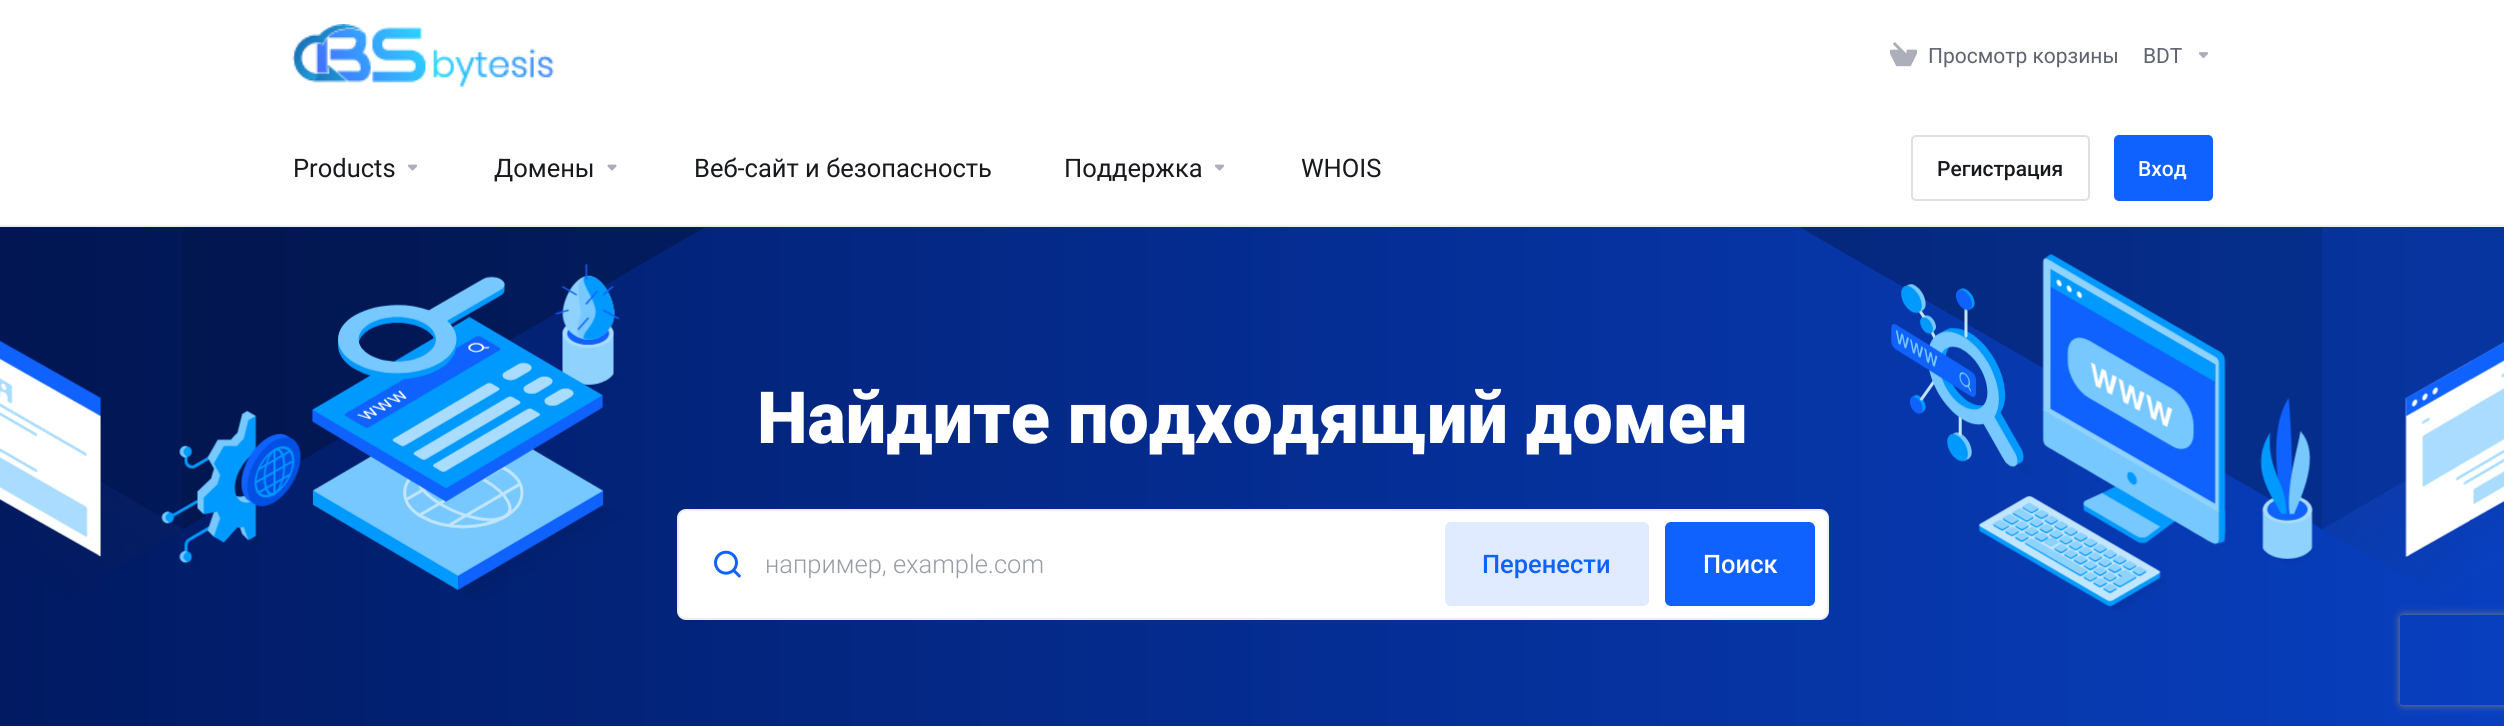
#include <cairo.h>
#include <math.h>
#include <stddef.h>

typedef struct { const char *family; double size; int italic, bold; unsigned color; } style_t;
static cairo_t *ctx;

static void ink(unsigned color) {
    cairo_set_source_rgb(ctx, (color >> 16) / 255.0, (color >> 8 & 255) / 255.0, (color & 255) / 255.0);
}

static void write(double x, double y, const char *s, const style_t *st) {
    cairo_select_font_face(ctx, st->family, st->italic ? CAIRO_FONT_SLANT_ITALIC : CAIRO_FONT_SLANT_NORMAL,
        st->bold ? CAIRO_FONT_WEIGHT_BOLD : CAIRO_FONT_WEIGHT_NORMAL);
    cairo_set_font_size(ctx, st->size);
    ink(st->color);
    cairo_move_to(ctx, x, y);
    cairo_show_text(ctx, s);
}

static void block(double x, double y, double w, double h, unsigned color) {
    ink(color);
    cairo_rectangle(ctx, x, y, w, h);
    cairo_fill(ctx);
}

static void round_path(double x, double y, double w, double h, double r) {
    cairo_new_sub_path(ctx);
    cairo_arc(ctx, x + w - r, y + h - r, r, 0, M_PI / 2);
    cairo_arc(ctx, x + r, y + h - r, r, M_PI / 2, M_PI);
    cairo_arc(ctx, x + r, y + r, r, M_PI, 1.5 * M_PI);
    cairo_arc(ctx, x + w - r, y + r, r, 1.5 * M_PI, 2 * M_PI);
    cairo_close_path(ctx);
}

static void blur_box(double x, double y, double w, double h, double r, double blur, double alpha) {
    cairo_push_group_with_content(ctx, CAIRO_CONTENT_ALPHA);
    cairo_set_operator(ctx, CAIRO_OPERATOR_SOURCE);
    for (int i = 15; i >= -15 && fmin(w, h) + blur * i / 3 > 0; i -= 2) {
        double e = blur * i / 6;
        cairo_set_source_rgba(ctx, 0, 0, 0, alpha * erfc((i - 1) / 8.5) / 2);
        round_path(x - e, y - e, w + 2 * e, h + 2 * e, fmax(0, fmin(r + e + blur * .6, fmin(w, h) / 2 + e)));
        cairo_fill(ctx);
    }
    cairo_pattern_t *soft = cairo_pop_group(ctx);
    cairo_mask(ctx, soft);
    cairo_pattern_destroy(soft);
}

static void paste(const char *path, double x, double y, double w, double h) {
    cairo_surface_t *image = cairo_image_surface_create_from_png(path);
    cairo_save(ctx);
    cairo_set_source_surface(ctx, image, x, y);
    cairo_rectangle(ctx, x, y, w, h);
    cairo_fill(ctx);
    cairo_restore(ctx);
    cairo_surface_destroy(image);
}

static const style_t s1 = {"Roboto", 21, 0, 0, 0x5e636e};
static const style_t s2 = {"Roboto", 25.5, 0, 0, 0x17191c};
static const style_t s3 = {"Roboto Medium", 21, 0, 0, 0x17191c};
static const style_t s4 = {"Roboto Medium", 21, 0, 0, 0xffffff};
static const style_t s5 = {"Roboto Black", 72, 0, 0, 0xffffff};
static const style_t s6 = {"Roboto Light", 25.5, 0, 0, 0x979ba4};
static const style_t s7 = {"Roboto Medium", 25.5, 0, 0, 0x1062fe};
static const style_t s8 = {"Roboto Medium", 25.5, 0, 0, 0xffffff};

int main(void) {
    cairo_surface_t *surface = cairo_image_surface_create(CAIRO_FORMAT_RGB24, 2504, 726);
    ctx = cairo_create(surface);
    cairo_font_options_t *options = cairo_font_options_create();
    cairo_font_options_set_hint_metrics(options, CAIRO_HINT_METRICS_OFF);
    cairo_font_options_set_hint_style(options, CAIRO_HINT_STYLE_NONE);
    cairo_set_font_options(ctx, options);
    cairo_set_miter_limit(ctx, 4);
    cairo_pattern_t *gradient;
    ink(0xffffff);
    cairo_paint(ctx);
    block(0, 225, 2504, 2, 0xefeff1);
    paste("pic1.png", 292, 24, 262, 63);
    paste("pic2.png", 1890, 42, 27, 25);
    write(1928, 63, "Просмотр корзины", &s1);
    write(2143, 63, "BDT", &s1);
    paste("pic3.png", 2199, 52, 9, 7);
    write(293, 177, "Products", &s2);
    paste("pic4.png", 408, 164, 9, 7);
    write(494, 177, "Домены", &s2);
    paste("pic5.png", 607, 164, 10, 7);
    write(694, 177, "Веб-сайт и безопасность", &s2);
    write(1064, 177, "Поддержка", &s2);
    paste("pic4.png", 1215, 164, 9, 7);
    write(1301, 177, "WHOIS", &s2);
    round_path(1912, 136, 177, 64, 4);
    ink(0xdee0e3);
    cairo_stroke(ctx);
    write(1937, 176, "Регистрация", &s3);
    ink(0x1062fe);
    round_path(2115, 136, 97, 64, 4);
    cairo_fill_preserve(ctx);
    cairo_stroke(ctx);
    write(2138, 176, "Вход", &s4);
    gradient = cairo_pattern_create_linear(0, 498, 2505, 498);
    cairo_pattern_add_color_stop_rgba(gradient, 0, 0.004, 0.102, 0.384, 1);
    cairo_pattern_add_color_stop_rgba(gradient, 1, 0.031, 0.247, 0.749, 1);
    cairo_set_source(ctx, gradient);
    cairo_pattern_destroy(gradient);
    cairo_rectangle(ctx, 0, 227, 2504, 499);
    cairo_fill(ctx);
    paste("pic6.png", 0, 227, 2504, 385);
    write(757, 443, "Найдите подходящий домен", &s5);
    round_path(678, 510, 1150, 109, 8);
    cairo_fill_preserve(ctx);
    ink(0xefeff1);
    cairo_stroke(ctx);
    paste("pic7.png", 714, 550, 27, 28);
    write(765, 573, "например, example.com", &s6);
    ink(0xe0ebff);
    round_path(1446, 523, 202, 82, 5);
    cairo_fill_preserve(ctx);
    cairo_stroke(ctx);
    write(1482, 573, "Перенести", &s7);
    round_path(1666, 523, 148, 82, 5);
    cairo_fill_preserve(ctx);
    cairo_stroke(ctx);
    write(1703, 573, "Поиск", &s8);
    cairo_save(ctx);
    cairo_set_fill_rule(ctx, CAIRO_FILL_RULE_EVEN_ODD);
    cairo_new_path(ctx);
    cairo_move_to(ctx, 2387, 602);
    cairo_line_to(ctx, 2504, 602);
    cairo_line_to(ctx, 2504, 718);
    cairo_line_to(ctx, 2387, 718);
    cairo_close_path(ctx);
    cairo_move_to(ctx, 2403, 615);
    cairo_line_to(ctx, 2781, 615);
    cairo_curve_to(ctx, 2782.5, 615, 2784, 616.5, 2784, 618);
    cairo_line_to(ctx, 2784, 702);
    cairo_curve_to(ctx, 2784, 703.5, 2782.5, 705, 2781, 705);
    cairo_line_to(ctx, 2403, 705);
    cairo_curve_to(ctx, 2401.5, 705, 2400, 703.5, 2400, 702);
    cairo_line_to(ctx, 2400, 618);
    cairo_curve_to(ctx, 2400, 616.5, 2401.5, 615, 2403, 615);
    cairo_close_path(ctx);
    cairo_clip(ctx);
    ink(0x808080);
    blur_box(2400, 615, 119, 90, 3, 4, 1);
    cairo_restore(ctx);
    cairo_surface_write_to_png(surface, "screenshot.png");
    cairo_font_options_destroy(options);
    cairo_destroy(ctx);
    cairo_surface_destroy(surface);
    return 0;
}
